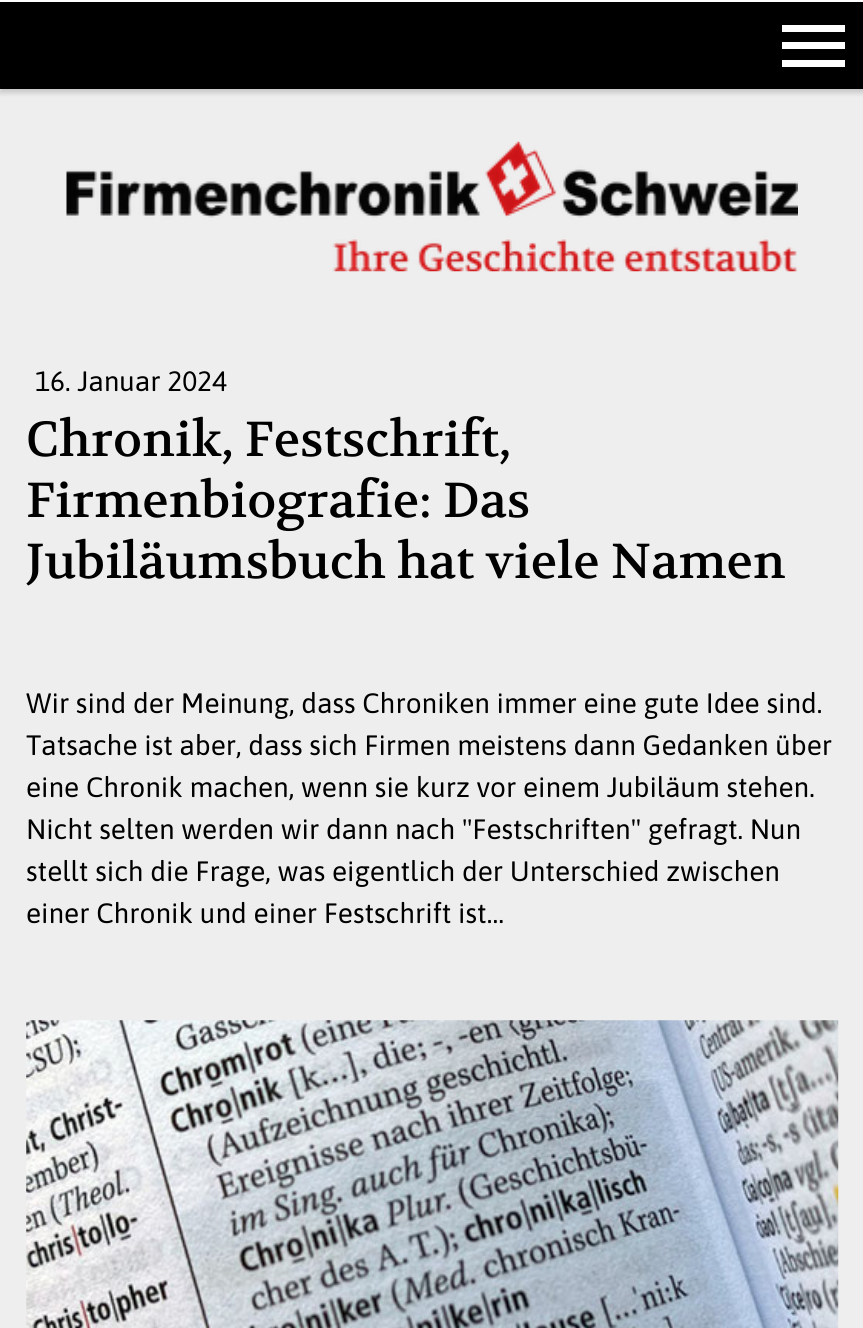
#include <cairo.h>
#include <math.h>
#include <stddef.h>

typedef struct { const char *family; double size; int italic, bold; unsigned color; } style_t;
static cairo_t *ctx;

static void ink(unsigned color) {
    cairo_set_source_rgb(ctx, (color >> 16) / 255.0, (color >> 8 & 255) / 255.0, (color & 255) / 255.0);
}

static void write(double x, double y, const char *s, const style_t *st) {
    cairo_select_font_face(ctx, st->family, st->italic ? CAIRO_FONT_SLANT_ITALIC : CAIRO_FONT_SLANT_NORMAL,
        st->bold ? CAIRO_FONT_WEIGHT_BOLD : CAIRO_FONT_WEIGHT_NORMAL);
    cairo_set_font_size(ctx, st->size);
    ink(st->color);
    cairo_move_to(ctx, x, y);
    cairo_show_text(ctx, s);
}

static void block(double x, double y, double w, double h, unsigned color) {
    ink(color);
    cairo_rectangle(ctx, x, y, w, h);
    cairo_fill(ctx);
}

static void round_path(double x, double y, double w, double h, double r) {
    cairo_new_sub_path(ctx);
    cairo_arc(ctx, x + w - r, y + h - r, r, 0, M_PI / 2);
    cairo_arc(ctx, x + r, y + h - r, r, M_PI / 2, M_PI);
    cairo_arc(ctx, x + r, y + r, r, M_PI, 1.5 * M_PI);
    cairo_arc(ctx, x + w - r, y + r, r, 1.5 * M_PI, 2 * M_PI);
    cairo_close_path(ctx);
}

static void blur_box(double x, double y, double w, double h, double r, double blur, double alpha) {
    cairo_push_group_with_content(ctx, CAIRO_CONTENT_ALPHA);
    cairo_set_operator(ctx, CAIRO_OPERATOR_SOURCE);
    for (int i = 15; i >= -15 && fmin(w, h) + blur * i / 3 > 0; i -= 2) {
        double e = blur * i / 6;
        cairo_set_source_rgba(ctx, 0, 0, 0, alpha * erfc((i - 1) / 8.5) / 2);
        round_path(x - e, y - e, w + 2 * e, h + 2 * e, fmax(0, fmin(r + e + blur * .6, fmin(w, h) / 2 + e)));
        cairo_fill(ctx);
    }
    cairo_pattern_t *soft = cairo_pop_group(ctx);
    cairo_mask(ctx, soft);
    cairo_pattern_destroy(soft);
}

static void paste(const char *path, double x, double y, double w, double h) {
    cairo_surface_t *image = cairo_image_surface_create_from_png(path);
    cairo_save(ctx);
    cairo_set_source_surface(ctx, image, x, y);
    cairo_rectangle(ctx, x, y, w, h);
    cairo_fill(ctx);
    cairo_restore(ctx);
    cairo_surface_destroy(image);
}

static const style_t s1 = {"Asap", 28, 0, 0, 0x000000};
static const style_t s2 = {"Volkhov", 49, 0, 0, 0x000000};

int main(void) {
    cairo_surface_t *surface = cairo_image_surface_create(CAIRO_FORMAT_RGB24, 863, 1328);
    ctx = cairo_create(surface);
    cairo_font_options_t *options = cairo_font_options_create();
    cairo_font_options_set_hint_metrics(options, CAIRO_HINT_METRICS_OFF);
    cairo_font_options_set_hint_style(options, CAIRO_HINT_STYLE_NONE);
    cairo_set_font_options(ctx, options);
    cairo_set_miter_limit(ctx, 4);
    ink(0xffffff);
    cairo_paint(ctx);
    block(0, 89, 863, 1239, 0xeeeeee);
    ink(0x000000);
    blur_box(0, 5, 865, 88, 0, 2.5, 0.16);
    block(0, 2, 863, 87, 0x000000);
    block(782, 42, 63, 7, 0xffffff);
    block(782, 25, 63, 7, 0xffffff);
    block(782, 60, 63, 7, 0xffffff);
    paste("pic1.png", 66, 141, 732, 131);
    write(35, 391, "16. Januar 2024", &s1);
    write(26, 456, "Chronik, Festschrift,", &s2);
    write(26, 517, "Firmenbiografie: Das", &s2);
    write(26, 578, "Jubiläumsbuch hat viele Namen", &s2);
    write(26, 713, "Wir sind der Meinung, dass Chroniken immer eine gute Idee sind.", &s1);
    write(26, 755, "Tatsache ist aber, dass sich Firmen meistens dann Gedanken über", &s1);
    write(26, 797, "eine Chronik machen, wenn sie kurz vor einem Jubiläum stehen.", &s1);
    write(26, 839, "Nicht selten werden wir dann nach \"Festschriften\" gefragt. Nun", &s1);
    write(26, 881, "stellt sich die Frage, was eigentlich der Unterschied zwischen", &s1);
    write(26, 923, "einer Chronik und einer Festschrift ist…", &s1);
    paste("pic2.png", 26, 1020, 813, 308);
    cairo_surface_write_to_png(surface, "screenshot.png");
    cairo_font_options_destroy(options);
    cairo_destroy(ctx);
    cairo_surface_destroy(surface);
    return 0;
}
